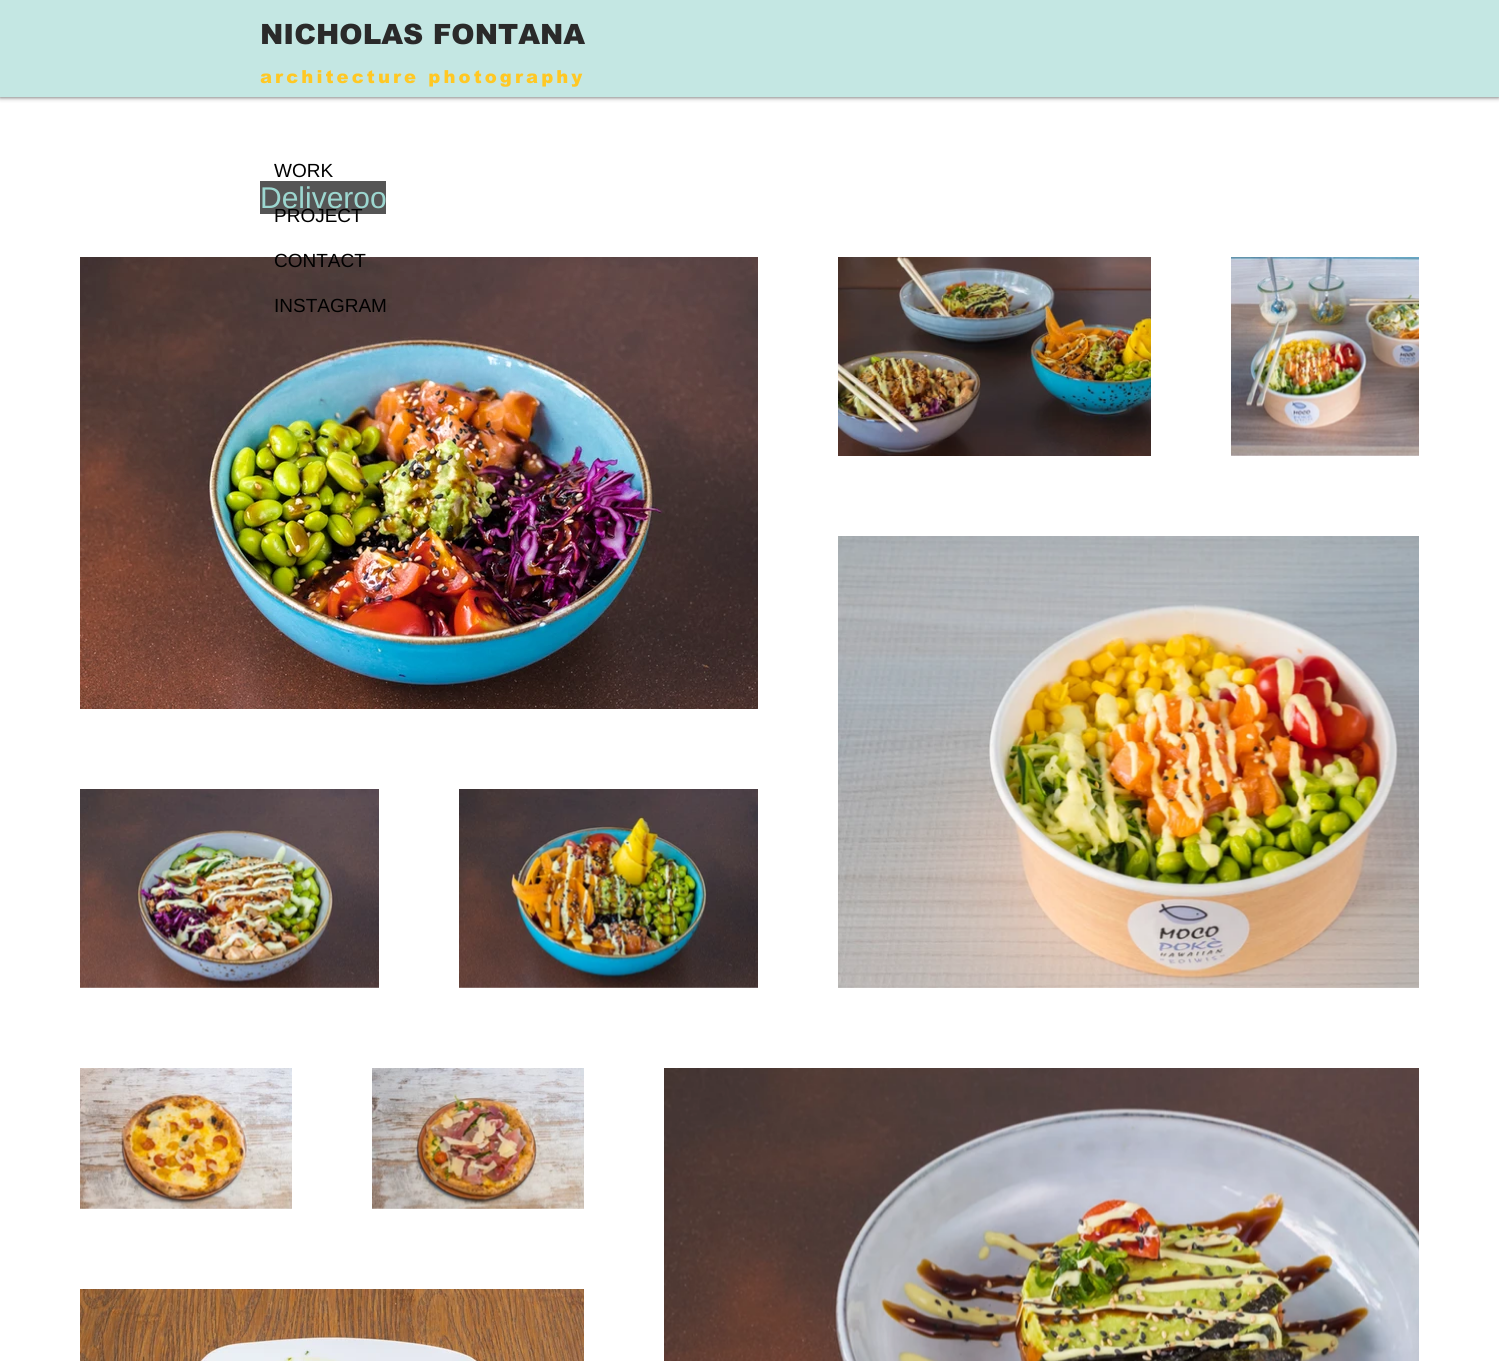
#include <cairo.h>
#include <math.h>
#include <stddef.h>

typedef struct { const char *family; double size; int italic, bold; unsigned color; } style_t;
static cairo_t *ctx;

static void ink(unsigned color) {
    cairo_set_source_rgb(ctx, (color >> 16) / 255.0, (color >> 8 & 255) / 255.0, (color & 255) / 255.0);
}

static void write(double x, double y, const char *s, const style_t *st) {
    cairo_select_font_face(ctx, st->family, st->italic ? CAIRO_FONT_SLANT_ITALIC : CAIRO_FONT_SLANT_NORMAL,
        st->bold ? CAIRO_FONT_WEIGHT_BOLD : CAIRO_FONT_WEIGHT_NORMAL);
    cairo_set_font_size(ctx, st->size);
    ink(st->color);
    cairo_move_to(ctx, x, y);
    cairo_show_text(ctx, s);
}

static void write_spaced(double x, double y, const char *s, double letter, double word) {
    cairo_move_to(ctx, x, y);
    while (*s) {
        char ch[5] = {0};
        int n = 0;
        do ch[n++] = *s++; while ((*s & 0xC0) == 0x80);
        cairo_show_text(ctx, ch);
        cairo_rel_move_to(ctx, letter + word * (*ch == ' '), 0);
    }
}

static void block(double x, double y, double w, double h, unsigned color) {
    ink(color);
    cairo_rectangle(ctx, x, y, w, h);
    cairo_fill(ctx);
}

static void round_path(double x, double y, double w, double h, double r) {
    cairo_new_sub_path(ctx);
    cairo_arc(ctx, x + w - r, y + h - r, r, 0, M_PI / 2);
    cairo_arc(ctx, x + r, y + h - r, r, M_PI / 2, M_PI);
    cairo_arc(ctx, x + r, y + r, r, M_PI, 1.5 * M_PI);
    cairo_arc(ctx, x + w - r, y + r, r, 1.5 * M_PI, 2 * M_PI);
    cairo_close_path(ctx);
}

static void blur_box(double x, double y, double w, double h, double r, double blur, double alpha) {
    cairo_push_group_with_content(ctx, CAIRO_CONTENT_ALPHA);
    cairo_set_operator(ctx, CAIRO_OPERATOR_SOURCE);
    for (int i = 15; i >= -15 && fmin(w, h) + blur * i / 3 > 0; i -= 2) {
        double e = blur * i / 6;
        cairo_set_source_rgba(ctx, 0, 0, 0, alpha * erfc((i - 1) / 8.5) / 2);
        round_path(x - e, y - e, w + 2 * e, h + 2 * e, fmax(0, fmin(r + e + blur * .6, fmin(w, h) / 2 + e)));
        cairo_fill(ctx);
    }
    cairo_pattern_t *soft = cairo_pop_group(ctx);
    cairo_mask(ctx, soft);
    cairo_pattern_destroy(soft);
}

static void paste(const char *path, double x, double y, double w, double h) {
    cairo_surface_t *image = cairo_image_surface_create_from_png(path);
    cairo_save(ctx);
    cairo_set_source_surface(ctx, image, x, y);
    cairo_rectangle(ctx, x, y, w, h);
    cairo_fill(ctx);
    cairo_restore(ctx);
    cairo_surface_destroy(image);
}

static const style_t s1 = {"arial Black", 28, 0, 0, 0x2a2a2a};
static const style_t s2 = {"Liberation Sans", 19, 0, 0, 0x000000};
static const style_t s3 = {"Liberation Sans", 30, 0, 0, 0x9cd7d0};

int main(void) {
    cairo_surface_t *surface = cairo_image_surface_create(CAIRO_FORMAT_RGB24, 1499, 1361);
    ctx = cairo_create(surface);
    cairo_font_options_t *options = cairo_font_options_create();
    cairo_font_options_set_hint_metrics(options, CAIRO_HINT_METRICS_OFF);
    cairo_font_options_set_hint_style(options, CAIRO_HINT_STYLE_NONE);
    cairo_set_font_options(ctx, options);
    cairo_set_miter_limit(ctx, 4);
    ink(0xffffff);
    cairo_paint(ctx);
    ink(0x000000);
    blur_box(0, 0, 1499, 97, 0, 2.5, 0.7);
    block(0, 0, 1499, 97, 0xc4e7e3);
    write(260, 44, "NICHOLAS FONTANA", &s1);
    cairo_set_font_size(ctx, 18);
    ink(0xffc824);
    write_spaced(260, 83, "architecture photography", 3.1, 0);
    write(274, 177, "WORK", &s2);
    block(260, 181, 126, 33, 0x555555);
    write(274, 222, "PROJECT", &s2);
    paste("pic1.png", 80, 257, 678, 452);
    write(274, 267, "CONTACT", &s2);
    write(274, 312, "INSTAGRAM", &s2);
    write(260, 208, "Deliveroo", &s3);
    paste("pic2.png", 838, 257, 313, 199);
    paste("pic3.png", 1231, 257, 188, 199);
    paste("pic4.png", 80, 789, 299, 199);
    paste("pic5.png", 459, 789, 299, 199);
    paste("pic6.png", 838, 536, 581, 452);
    paste("pic7.png", 80, 1068, 212, 141);
    paste("pic8.png", 372, 1068, 212, 141);
    paste("pic9.png", 664, 1068, 755, 293);
    paste("pic10.png", 80, 1289, 504, 72);
    cairo_surface_write_to_png(surface, "screenshot.png");
    cairo_font_options_destroy(options);
    cairo_destroy(ctx);
    cairo_surface_destroy(surface);
    return 0;
}
